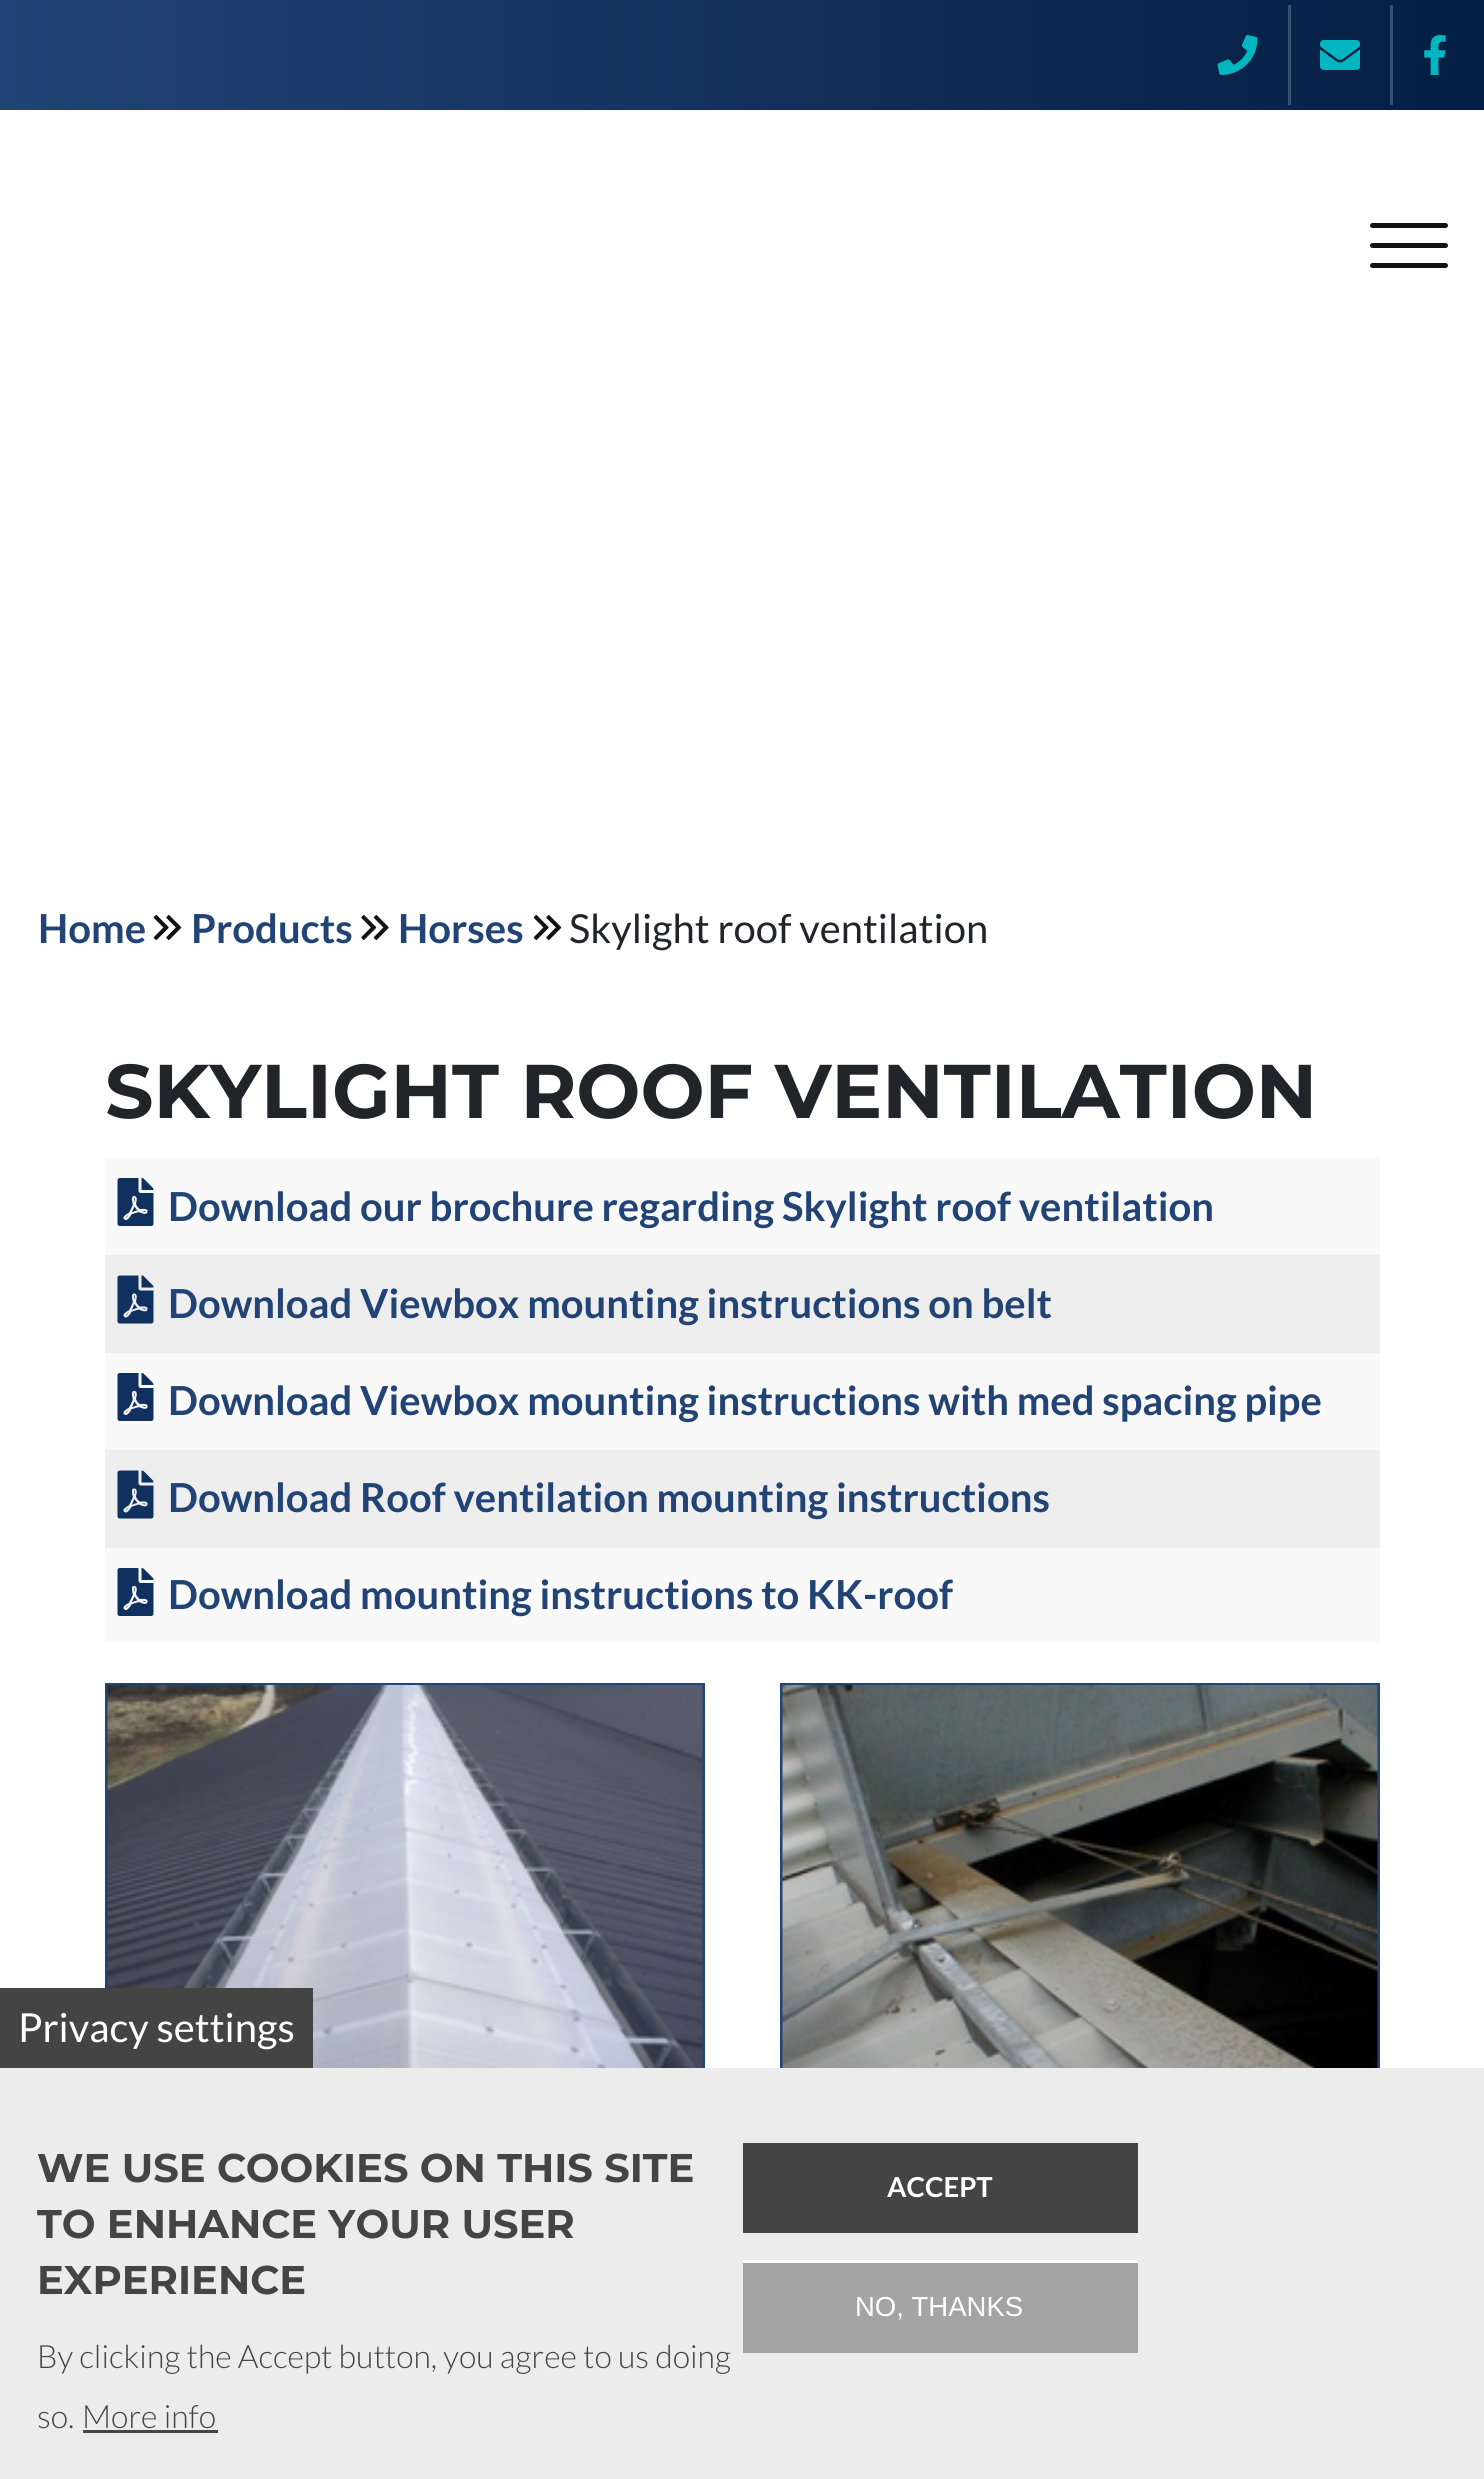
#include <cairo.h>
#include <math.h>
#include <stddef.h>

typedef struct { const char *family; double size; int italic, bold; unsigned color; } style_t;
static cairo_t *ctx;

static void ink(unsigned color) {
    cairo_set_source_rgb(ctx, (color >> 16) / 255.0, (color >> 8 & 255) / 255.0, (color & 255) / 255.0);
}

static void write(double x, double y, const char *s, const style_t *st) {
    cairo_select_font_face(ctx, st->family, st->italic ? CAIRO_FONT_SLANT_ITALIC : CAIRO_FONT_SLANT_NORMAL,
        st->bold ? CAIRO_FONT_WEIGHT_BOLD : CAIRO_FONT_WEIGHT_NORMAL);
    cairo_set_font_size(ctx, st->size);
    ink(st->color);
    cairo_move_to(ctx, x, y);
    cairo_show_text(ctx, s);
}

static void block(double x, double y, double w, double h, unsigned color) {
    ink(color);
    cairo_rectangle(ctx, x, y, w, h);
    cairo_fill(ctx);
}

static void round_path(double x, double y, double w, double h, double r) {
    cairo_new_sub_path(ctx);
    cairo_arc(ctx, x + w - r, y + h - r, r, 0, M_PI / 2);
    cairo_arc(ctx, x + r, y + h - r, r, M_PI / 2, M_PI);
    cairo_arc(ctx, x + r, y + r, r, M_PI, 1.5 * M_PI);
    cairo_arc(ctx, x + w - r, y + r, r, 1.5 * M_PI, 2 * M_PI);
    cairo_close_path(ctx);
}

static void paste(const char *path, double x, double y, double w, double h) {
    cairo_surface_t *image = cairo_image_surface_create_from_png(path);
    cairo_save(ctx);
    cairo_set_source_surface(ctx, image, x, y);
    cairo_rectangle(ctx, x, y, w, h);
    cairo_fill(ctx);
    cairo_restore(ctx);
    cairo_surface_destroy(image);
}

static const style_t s1 = {"Lato", 40, 0, 1, 0x214375};
static const style_t s2 = {"Lato", 40, 0, 0, 0x212429};
static const style_t s3 = {"Montserrat", 76, 0, 1, 0x212429};
static const style_t s4 = {"Lato", 40, 0, 0, 0xffffff};
static const style_t s5 = {"Montserrat", 40, 0, 1, 0x444444};
static const style_t s6 = {"Lato Light", 32, 0, 0, 0x444444};
static const style_t s7 = {"Lato", 27.5, 0, 1, 0xffffff};
static const style_t s8 = {"Liberation Sans", 27.5, 0, 0, 0xffffff};

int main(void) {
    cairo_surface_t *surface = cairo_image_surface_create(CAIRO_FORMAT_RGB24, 1484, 2479);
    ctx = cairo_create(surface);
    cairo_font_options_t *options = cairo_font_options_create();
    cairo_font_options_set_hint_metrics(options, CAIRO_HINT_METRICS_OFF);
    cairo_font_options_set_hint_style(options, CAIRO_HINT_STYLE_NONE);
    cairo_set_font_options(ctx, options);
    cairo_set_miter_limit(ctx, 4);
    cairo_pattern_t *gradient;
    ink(0xffffff);
    cairo_paint(ctx);
    gradient = cairo_pattern_create_linear(0, 55, 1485, 55);
    cairo_pattern_add_color_stop_rgba(gradient, 0, 0.129, 0.263, 0.459, 1);
    cairo_pattern_add_color_stop_rgba(gradient, 1, 0.02, 0.118, 0.263, 1);
    cairo_set_source(ctx, gradient);
    cairo_pattern_destroy(gradient);
    cairo_rectangle(ctx, 0, 0, 1484, 110);
    cairo_fill(ctx);
    block(1288, 5, 3, 100, 0x3a4f6e);
    paste("pic1.png", 1217, 35, 41, 40);
    block(1390, 5, 3, 100, 0x394d6b);
    paste("pic2.png", 1320, 40, 40, 30);
    paste("pic3.png", 1424, 35, 22, 40);
    ink(0x121212);
    round_path(1370, 243, 78, 5, 2.5);
    cairo_fill(ctx);
    round_path(1370, 223, 78, 5, 2.5);
    cairo_fill(ctx);
    round_path(1370, 263, 78, 5, 2.5);
    cairo_fill(ctx);
    write(38, 943, "Home", &s1);
    paste("pic4.png", 153, 915, 29, 25);
    write(191, 943, "Products", &s1);
    paste("pic5.png", 361, 915, 28, 25);
    write(398, 943, "Horses", &s1);
    paste("pic4.png", 533, 915, 29, 25);
    write(569, 943, "Skylight roof ventilation", &s2);
    write(105, 1118, "SKYLIGHT ROOF VENTILATION", &s3);
    block(105, 1158, 1275, 97, 0xf9f9f9);
    paste("pic6.png", 117, 1178, 37, 48);
    write(168, 1221, "Download our brochure regarding Skylight roof ventilation", &s1);
    block(105, 1255, 1275, 98, 0xeeeeee);
    paste("pic7.png", 117, 1275, 37, 49);
    write(168, 1318, "Download Viewbox mounting instructions on belt", &s1);
    block(105, 1353, 1275, 97, 0xf9f9f9);
    paste("pic6.png", 117, 1373, 37, 48);
    write(168, 1415, "Download Viewbox mounting instructions with med spacing pipe", &s1);
    block(105, 1450, 1275, 98, 0xeeeeee);
    paste("pic7.png", 117, 1470, 37, 49);
    write(168, 1512, "Download Roof ventilation mounting instructions", &s1);
    block(105, 1548, 1275, 95, 0xf9f9f9);
    paste("pic6.png", 117, 1568, 37, 48);
    write(168, 1609, "Download mounting instructions to KK-roof", &s1);
    cairo_rectangle(ctx, 106.5, 1684.5, 597, 467);
    cairo_set_line_width(ctx, 3);
    cairo_stroke(ctx);
    paste("pic8.png", 107, 1685, 596, 383);
    cairo_rectangle(ctx, 781.5, 1684.5, 597, 467);
    cairo_stroke(ctx);
    paste("pic9.png", 782, 1685, 596, 383);
    block(0, 2068, 1484, 411, 0xececec);
    block(0, 1988, 313, 80, 0x444444);
    write(18, 2042, "Privacy settings", &s4);
    write(37, 2182, "WE USE COOKIES ON THIS SITE", &s5);
    write(37, 2238, "TO ENHANCE YOUR USER", &s5);
    write(37, 2294, "EXPERIENCE", &s5);
    write(37, 2368, "By clicking the Accept button, you agree to us doing", &s6);
    write(37, 2428, "so.", &s6);
    write(82, 2428, "More info", &s6);
    block(83, 2430, 135, 3, 0x444444);
    block(743, 2143, 395, 90, 0x444444);
    write(887, 2197, "ACCEPT", &s7);
    block(743, 2263, 395, 90, 0xa4a4a4);
    block(743, 2260, 395, 3, 0xffffff);
    write(855, 2316, "NO, THANKS", &s8);
    cairo_surface_write_to_png(surface, "screenshot.png");
    cairo_font_options_destroy(options);
    cairo_destroy(ctx);
    cairo_surface_destroy(surface);
    return 0;
}
